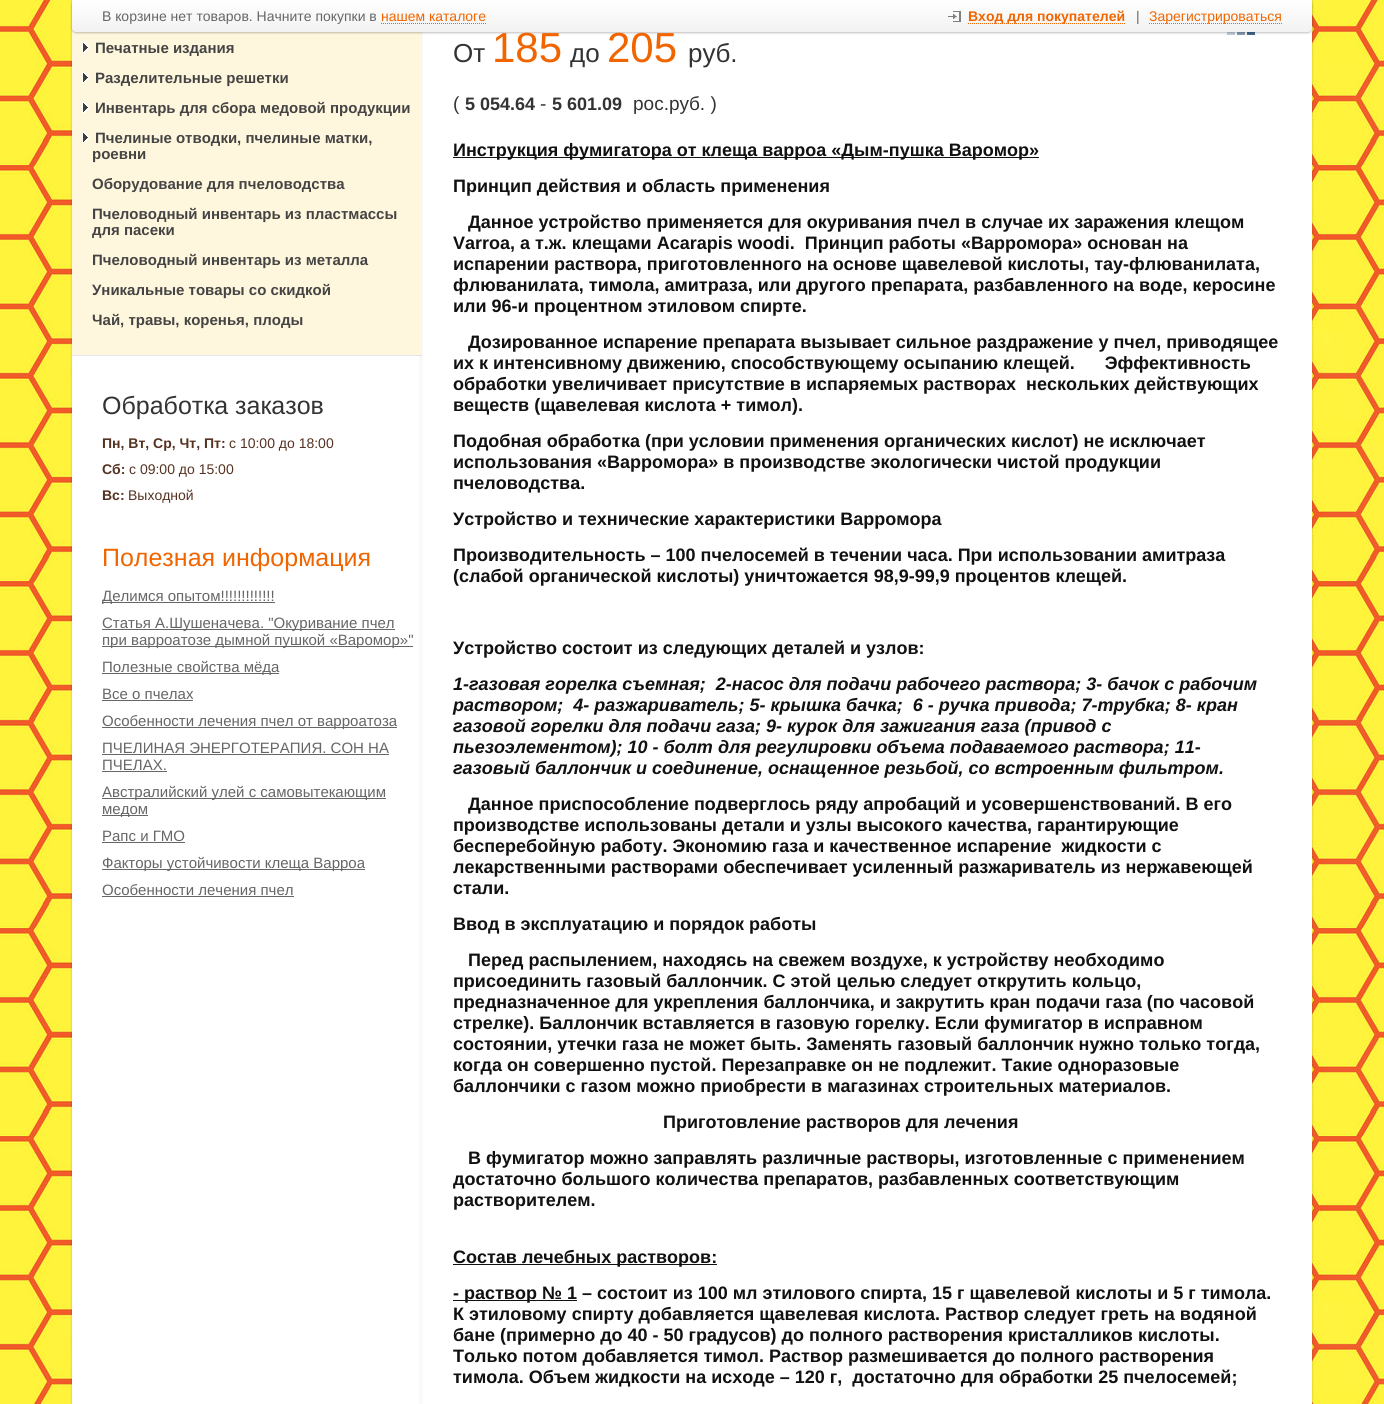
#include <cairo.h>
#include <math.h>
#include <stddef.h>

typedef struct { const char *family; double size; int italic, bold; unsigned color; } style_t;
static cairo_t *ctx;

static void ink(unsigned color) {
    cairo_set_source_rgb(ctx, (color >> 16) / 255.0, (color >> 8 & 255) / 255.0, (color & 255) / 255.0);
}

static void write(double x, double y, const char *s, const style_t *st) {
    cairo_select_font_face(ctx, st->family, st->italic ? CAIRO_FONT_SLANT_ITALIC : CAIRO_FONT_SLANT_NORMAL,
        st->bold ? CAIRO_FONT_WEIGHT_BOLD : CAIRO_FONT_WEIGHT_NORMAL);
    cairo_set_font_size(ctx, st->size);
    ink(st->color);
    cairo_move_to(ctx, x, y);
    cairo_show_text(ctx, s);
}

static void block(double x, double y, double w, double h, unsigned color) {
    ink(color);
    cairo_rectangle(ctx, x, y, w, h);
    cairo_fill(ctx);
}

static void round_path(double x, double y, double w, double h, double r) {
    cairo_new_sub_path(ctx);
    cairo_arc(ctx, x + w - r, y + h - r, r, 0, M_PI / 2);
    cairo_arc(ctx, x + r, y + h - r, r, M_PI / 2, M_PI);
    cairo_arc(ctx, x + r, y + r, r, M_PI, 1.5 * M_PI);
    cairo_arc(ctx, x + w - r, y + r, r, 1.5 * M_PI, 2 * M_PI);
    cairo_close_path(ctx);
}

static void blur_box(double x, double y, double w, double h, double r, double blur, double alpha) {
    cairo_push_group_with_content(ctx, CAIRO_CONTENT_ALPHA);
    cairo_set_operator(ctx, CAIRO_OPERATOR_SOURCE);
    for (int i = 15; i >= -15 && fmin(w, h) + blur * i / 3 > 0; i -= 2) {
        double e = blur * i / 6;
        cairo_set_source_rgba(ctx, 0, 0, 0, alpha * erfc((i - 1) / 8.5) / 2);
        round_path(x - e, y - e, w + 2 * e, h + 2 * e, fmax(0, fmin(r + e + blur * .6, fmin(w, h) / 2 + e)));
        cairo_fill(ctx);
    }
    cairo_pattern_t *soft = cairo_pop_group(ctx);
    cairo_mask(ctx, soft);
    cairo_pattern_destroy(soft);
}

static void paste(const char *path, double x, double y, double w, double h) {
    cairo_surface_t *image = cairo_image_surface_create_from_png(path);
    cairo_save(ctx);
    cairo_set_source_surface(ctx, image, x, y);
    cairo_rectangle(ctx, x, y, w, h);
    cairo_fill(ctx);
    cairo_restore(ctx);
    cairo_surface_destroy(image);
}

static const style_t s1 = {"Liberation Sans", 14, 0, 0, 0x666666};
static const style_t s2 = {"Liberation Sans", 14, 0, 0, 0xf06500};
static const style_t s3 = {"Liberation Sans", 14, 0, 1, 0xf06500};
static const style_t s4 = {"Liberation Sans", 15, 0, 1, 0x444444};
static const style_t s5 = {"Liberation Sans", 25, 0, 0, 0x333333};
static const style_t s6 = {"Liberation Sans", 14, 0, 1, 0x553322};
static const style_t s7 = {"Liberation Sans", 14, 0, 0, 0x553322};
static const style_t s8 = {"Liberation Sans", 25, 0, 0, 0xf06500};
static const style_t s9 = {"Liberation Sans", 15, 0, 0, 0x666666};
static const style_t s10 = {"Liberation Sans", 26, 0, 0, 0x333333};
static const style_t s11 = {"Liberation Sans", 42, 0, 0, 0xf06500};
static const style_t s12 = {"Liberation Sans", 19, 0, 0, 0x333333};
static const style_t s13 = {"Liberation Sans", 18, 0, 1, 0x333333};
static const style_t s14 = {"Liberation Sans", 18, 0, 1, 0x111111};
static const style_t s15 = {"Liberation Sans", 18, 1, 1, 0x111111};

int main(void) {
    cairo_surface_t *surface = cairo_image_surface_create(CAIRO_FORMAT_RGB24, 1384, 1404);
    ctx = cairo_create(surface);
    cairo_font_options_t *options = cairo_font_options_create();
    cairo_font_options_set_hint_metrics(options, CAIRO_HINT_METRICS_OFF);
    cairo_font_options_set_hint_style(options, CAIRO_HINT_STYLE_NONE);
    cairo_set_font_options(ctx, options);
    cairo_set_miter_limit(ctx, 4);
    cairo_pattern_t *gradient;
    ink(0xffffff);
    cairo_paint(ctx);
    paste("pic1.png", 0, 0, 1384, 1404);
    ink(0x000000);
    blur_box(72, -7, 1240, 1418, 4, 1, 0.25);
    block(72, 28, 1240, 1376, 0xffffff);
    block(419, 32, 4, 1372, 0xf9f9f9);
    block(72, 28, 350, 327, 0xfff7dd);
    paste("pic4.png", 1227, 32, 28, 3);
    ink(0x000000);
    blur_box(72, 1, 1240, 32, 4, 1, 0.25);
    gradient = cairo_pattern_create_linear(72, 0, 72, 32);
    cairo_pattern_add_color_stop_rgba(gradient, 0, 1, 1, 1, 1);
    cairo_pattern_add_color_stop_rgba(gradient, 1, 0.949, 0.949, 0.949, 1);
    cairo_set_source(ctx, gradient);
    cairo_pattern_destroy(gradient);
    cairo_new_path(ctx);
    cairo_move_to(ctx, 72, 0);
    cairo_line_to(ctx, 1312, 0);
    cairo_line_to(ctx, 1312, 28);
    cairo_curve_to(ctx, 1312, 30, 1310, 32, 1308, 32);
    cairo_line_to(ctx, 76, 32);
    cairo_curve_to(ctx, 74, 32, 72, 30, 72, 28);
    cairo_close_path(ctx);
    cairo_fill(ctx);
    write(102, 21, "В корзине нет товаров. Начните покупки в", &s1);
    cairo_new_path(ctx);
    cairo_move_to(ctx, 381, 23.5);
    cairo_line_to(ctx, 486, 23.5);
    ink(0xf06500);
    cairo_set_line_width(ctx, 1);
    cairo_set_dash(ctx, (double[]){1, 1}, 2, 0);
    cairo_stroke(ctx);
    write(381, 21, "нашем каталоге", &s2);
    paste("pic2.png", 948, 11, 13, 11);
    cairo_new_path(ctx);
    cairo_move_to(ctx, 968, 23.5);
    cairo_line_to(ctx, 1126, 23.5);
    cairo_stroke(ctx);
    write(968, 21, "Вход для покупателей", &s3);
    write(1136, 21, "|", &s1);
    cairo_new_path(ctx);
    cairo_move_to(ctx, 1149, 23.5);
    cairo_line_to(ctx, 1282, 23.5);
    ink(0xf06500);
    cairo_stroke(ctx);
    write(1149, 21, "Зарегистрироваться", &s2);
    paste("pic3.png", 82, 42, 7, 11);
    write(95, 53, "Печатные издания", &s4);
    paste("pic3.png", 82, 72, 7, 11);
    write(95, 83, "Разделительные решетки", &s4);
    paste("pic3.png", 82, 102, 7, 11);
    write(95, 113, "Инвентарь для сбора медовой продукции", &s4);
    paste("pic3.png", 82, 132, 7, 11);
    write(95, 143, "Пчелиные отводки, пчелиные матки,", &s4);
    write(92, 159, "роевни", &s4);
    write(92, 189, "Оборудование для пчеловодства", &s4);
    write(92, 219, "Пчеловодный инвентарь из пластмассы", &s4);
    write(92, 235, "для пасеки", &s4);
    write(92, 265, "Пчеловодный инвентарь из металла", &s4);
    write(92, 295, "Уникальные товары со скидкой", &s4);
    write(92, 325, "Чай, травы, коренья, плоды", &s4);
    block(72, 355, 350, 1, 0xe6e6e6);
    write(102, 414, "Обработка заказов", &s5);
    write(102, 448, "Пн, Вт, Ср, Чт, Пт:", &s6);
    write(229, 448, "с 10:00 до 18:00", &s7);
    write(102, 474, "Сб:", &s6);
    write(129, 474, "с 09:00 до 15:00", &s7);
    write(102, 500, "Вс:", &s6);
    write(128, 500, "Выходной", &s7);
    write(102, 566, "Полезная информация", &s8);
    block(102, 602, 173, 1, 0x666666);
    write(102, 601, "Делимся опытом!!!!!!!!!!!!!", &s9);
    block(102, 629, 293, 1, 0x666666);
    write(102, 628, "Статья А.Шушеначева. \"Окуривание пчел", &s9);
    block(102, 646, 311, 1, 0x666666);
    write(102, 645, "при варроатозе дымной пушкой «Варомор»\"", &s9);
    block(102, 673, 177, 1, 0x666666);
    write(102, 672, "Полезные свойства мёда", &s9);
    write(102, 699, "Все о пчелах", &s9);
    block(102, 700, 91, 1, 0x666666);
    block(102, 727, 295, 1, 0x666666);
    write(102, 726, "Особенности лечения пчел от варроатоза", &s9);
    write(102, 753, "ПЧЕЛИНАЯ ЭНЕРГОТЕРАПИЯ. СОН НА", &s9);
    block(102, 754, 287, 1, 0x666666);
    write(102, 770, "ПЧЕЛАХ.", &s9);
    block(102, 771, 65, 1, 0x666666);
    block(102, 798, 284, 1, 0x666666);
    write(102, 797, "Австралийский улей с самовытекающим", &s9);
    block(102, 815, 46, 1, 0x666666);
    write(102, 814, "медом", &s9);
    write(102, 841, "Рапс и ГМО", &s9);
    block(102, 842, 83, 1, 0x666666);
    block(102, 869, 263, 1, 0x666666);
    write(102, 868, "Факторы устойчивости клеща Варроа", &s9);
    write(102, 895, "Особенности лечения пчел", &s9);
    block(102, 896, 192, 1, 0x666666);
    write(453, 62, "От", &s10);
    write(492, 62, "185", &s11);
    write(570, 62, "до", &s10);
    write(607, 62, "205", &s11);
    write(688, 62, "руб.", &s10);
    write(453, 110, "(", &s12);
    write(465, 110, "5 054.64", &s13);
    write(540, 110, "-", &s12);
    write(552, 110, "5 601.09", &s13);
    write(633, 110, "рос.руб. )", &s12);
    block(453, 157, 586, 1, 0x111111);
    write(453, 156, "Инструкция фумигатора от клеща варроа «Дым-пушка Варомор»", &s14);
    write(453, 192, "Принцип действия и область применения", &s14);
    write(468, 228, "Данное устройство применяется для окуривания пчел в случае их заражения клещом", &s14);
    write(453, 249, "Varroa, а т.ж. клещами Acarapis woodi.  Принцип работы «Варромора» основан на", &s14);
    write(453, 270, "испарении раствора, приготовленного на основе щавелевой кислоты, тау-флюванилата,", &s14);
    write(453, 291, "флюванилата, тимола, амитраза, или другого препарата, разбавленного на воде, керосине", &s14);
    write(453, 312, "или 96-и процентном этиловом спирте.", &s14);
    write(468, 348, "Дозированное испарение препарата вызывает сильное раздражение у пчел, приводящее", &s14);
    write(453, 369, "их к интенсивному движению, способствующему осыпанию клещей.      Эффективность", &s14);
    write(453, 390, "обработки увеличивает присутствие в испаряемых растворах  нескольких действующих", &s14);
    write(453, 411, "веществ (щавелевая кислота + тимол).", &s14);
    write(453, 447, "Подобная обработка (при условии применения органических кислот) не исключает", &s14);
    write(453, 468, "использования «Варромора» в производстве экологически чистой продукции", &s14);
    write(453, 489, "пчеловодства.", &s14);
    write(453, 525, "Устройство и технические характеристики Варромора", &s14);
    write(453, 561, "Производительность – 100 пчелосемей в течении часа. При использовании амитраза", &s14);
    write(453, 582, "(слабой органической кислоты) уничтожается 98,9-99,9 процентов клещей.", &s14);
    write(453, 654, "Устройство состоит из следующих деталей и узлов:", &s14);
    write(453, 690, "1-газовая горелка съемная;  2-насос для подачи рабочего раствора; 3- бачок с рабочим", &s15);
    write(453, 711, "раствором;  4- разжариватель; 5- крышка бачка;  6 - ручка привода; 7-трубка; 8- кран", &s15);
    write(453, 732, "газовой горелки для подачи газа; 9- курок для зажигания газа (привод с", &s15);
    write(453, 753, "пьезоэлементом); 10 - болт для регулировки объема подаваемого раствора; 11-", &s15);
    write(453, 774, "газовый баллончик и соединение, оснащенное резьбой, со встроенным фильтром.", &s15);
    write(468, 810, "Данное приспособление подверглось ряду апробаций и усовершенствований. В его", &s14);
    write(453, 831, "производстве использованы детали и узлы высокого качества, гарантирующие", &s14);
    write(453, 852, "бесперебойную работу. Экономию газа и качественное испарение  жидкости с", &s14);
    write(453, 873, "лекарственными растворами обеспечивает усиленный разжариватель из нержавеющей", &s14);
    write(453, 894, "стали.", &s14);
    write(453, 930, "Ввод в эксплуатацию и порядок работы", &s14);
    write(468, 966, "Перед распылением, находясь на свежем воздухе, к устройству необходимо", &s14);
    write(453, 987, "присоединить газовый баллончик. С этой целью следует открутить кольцо,", &s14);
    write(453, 1008, "предназначенное для укрепления баллончика, и закрутить кран подачи газа (по часовой", &s14);
    write(453, 1029, "стрелке). Баллончик вставляется в газовую горелку. Если фумигатор в исправном", &s14);
    write(453, 1050, "состоянии, утечки газа не может быть. Заменять газовый баллончик нужно только тогда,", &s14);
    write(453, 1071, "когда он совершенно пустой. Перезаправке он не подлежит. Такие одноразовые", &s14);
    write(453, 1092, "баллончики с газом можно приобрести в магазинах строительных материалов.", &s14);
    write(663, 1128, "Приготовление растворов для лечения", &s14);
    write(468, 1164, "В фумигатор можно заправлять различные растворы, изготовленные с применением", &s14);
    write(453, 1185, "достаточно большого количества препаратов, разбавленных соответствующим", &s14);
    write(453, 1206, "растворителем.", &s14);
    block(453, 1264, 264, 1, 0x111111);
    write(453, 1263, "Состав лечебных растворов:", &s14);
    block(453, 1300, 124, 1, 0x111111);
    write(453, 1299, "- раствор № 1 – состоит из 100 мл этилового спирта, 15 г щавелевой кислоты и 5 г тимола.", &s14);
    write(453, 1320, "К этиловому спирту добавляется щавелевая кислота. Раствор следует греть на водяной", &s14);
    write(453, 1341, "бане (примерно до 40 - 50 градусов) до полного растворения кристалликов кислоты.", &s14);
    write(453, 1362, "Только потом добавляется тимол. Раствор размешивается до полного растворения", &s14);
    write(453, 1383, "тимола. Объем жидкости на исходе – 120 г,  достаточно для обработки 25 пчелосемей;", &s14);
    cairo_surface_write_to_png(surface, "screenshot.png");
    cairo_font_options_destroy(options);
    cairo_destroy(ctx);
    cairo_surface_destroy(surface);
    return 0;
}
